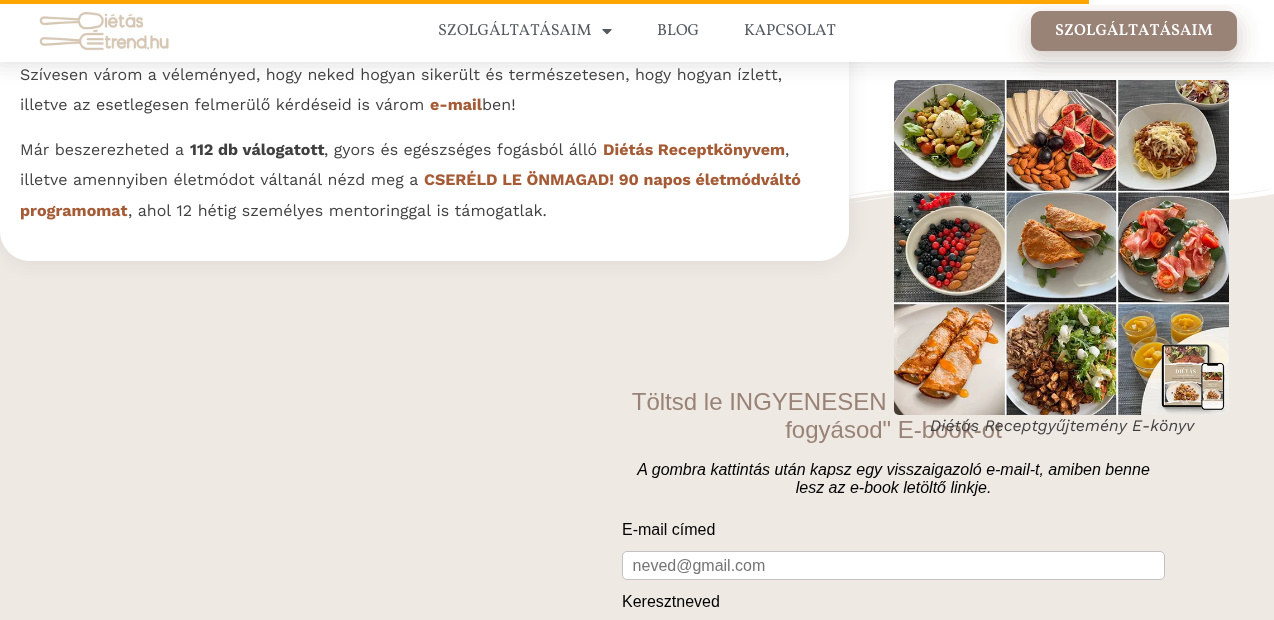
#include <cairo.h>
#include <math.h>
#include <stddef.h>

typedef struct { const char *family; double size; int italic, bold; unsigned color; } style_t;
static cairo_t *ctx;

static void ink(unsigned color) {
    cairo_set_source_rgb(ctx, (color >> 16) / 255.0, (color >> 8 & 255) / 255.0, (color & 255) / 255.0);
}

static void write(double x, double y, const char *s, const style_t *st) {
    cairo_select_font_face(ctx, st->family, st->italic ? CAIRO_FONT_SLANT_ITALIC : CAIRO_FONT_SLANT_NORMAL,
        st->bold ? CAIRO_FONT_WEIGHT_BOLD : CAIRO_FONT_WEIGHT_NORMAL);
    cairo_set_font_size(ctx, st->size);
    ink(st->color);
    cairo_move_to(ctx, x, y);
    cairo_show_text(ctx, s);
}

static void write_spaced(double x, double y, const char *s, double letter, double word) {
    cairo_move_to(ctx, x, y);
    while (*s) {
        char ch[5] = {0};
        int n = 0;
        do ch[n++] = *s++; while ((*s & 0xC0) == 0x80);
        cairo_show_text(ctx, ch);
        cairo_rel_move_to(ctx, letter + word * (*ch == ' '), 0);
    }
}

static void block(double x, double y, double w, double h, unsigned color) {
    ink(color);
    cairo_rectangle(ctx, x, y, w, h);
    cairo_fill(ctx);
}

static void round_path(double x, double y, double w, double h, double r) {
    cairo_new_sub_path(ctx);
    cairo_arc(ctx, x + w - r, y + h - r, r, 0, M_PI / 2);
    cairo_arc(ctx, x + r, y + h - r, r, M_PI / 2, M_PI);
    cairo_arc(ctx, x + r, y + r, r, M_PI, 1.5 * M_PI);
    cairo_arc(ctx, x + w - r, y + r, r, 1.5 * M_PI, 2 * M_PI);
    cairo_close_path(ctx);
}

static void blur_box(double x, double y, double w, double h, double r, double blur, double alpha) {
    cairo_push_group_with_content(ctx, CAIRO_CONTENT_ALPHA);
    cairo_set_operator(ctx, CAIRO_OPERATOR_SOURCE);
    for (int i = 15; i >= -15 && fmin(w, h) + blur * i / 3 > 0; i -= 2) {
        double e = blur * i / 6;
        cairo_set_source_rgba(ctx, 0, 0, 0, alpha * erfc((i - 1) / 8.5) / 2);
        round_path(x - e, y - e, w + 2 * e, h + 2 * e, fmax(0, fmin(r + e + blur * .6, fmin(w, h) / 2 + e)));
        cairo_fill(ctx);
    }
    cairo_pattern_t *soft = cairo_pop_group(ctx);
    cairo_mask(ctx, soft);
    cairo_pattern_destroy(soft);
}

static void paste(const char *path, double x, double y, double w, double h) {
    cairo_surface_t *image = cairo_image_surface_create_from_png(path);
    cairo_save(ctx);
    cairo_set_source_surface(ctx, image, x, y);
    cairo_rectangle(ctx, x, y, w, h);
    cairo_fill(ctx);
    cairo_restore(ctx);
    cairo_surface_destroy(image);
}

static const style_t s1 = {"Vollkorn", 16, 0, 0, 0x54595f};
static const style_t s2 = {"Work Sans", 16, 0, 0, 0x404040};
static const style_t s3 = {"Work Sans", 16, 0, 1, 0xa55b36};
static const style_t s4 = {"Work Sans", 16, 0, 1, 0x404040};
static const style_t s5 = {"Work Sans", 16, 1, 0, 0x404040};

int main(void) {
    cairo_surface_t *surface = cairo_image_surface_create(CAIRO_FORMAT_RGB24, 1274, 620);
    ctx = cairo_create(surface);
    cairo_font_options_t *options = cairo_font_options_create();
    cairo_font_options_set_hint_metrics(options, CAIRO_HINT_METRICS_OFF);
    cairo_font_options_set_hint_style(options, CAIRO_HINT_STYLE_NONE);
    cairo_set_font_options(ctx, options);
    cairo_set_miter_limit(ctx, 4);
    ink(0xffffff);
    cairo_paint(ctx);
    block(0, 188, 1274, 432, 0xeee9e3);
    paste("pic4.png", 849, 181, 425, 22);
    ink(0x000000);
    blur_box(0, -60, 849, 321, 30, 10, 0.09);
    ink(0xffffff);
    round_path(0, -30, 849, 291, 30);
    cairo_fill(ctx);
    paste("pic5.png", 622, 393, 543, 214);
    paste("pic3.png", 894, 80, 335, 335);
    ink(0x000000);
    blur_box(0, 0, 1274, 62, 0, 12, 0.15);
    block(0, 4, 1274, 58, 0xffffff);
    ink(0x482716);
    blur_box(1031, 19, 206, 40, 10, 12, 0.25);
    block(1089, 0, 185, 4, 0xffffff);
    block(0, 0, 1089, 4, 0xffa500);
    paste("pic1.png", 39, 12, 130, 39);
    write(438, 35, "SZOLGÁLTATÁSAIM", &s1);
    paste("pic2.png", 602, 29, 10, 6);
    write(657, 35, "BLOG", &s1);
    write(744, 35, "KAPCSOLAT", &s1);
    ink(0x998276);
    round_path(1031, 11, 206, 40, 10);
    cairo_fill(ctx);
    cairo_select_font_face(ctx, "Vollkorn SemiBold", CAIRO_FONT_SLANT_NORMAL, CAIRO_FONT_WEIGHT_NORMAL);
    ink(0xffffff);
    write_spaced(1055, 35, "SZOLGÁLTATÁSAIM", 0.1, 0);
    write(20, 80, "Szívesen várom a véleményed, hogy neked hogyan sikerült és természetesen, hogy hogyan ízlett,", &s2);
    write(20, 110, "illetve az esetlegesen felmerülő kérdéseid is várom", &s2);
    write(430, 110, "e-mail", &s3);
    write(482, 110, "ben!", &s2);
    write(20, 155, "Már beszerezheted a", &s2);
    write(190, 155, "112 db válogatott", &s4);
    write(324, 155, ", gyors és egészséges fogásból álló", &s2);
    write(603, 155, "Diétás Receptkönyvem", &s3);
    write(785, 155, ",", &s2);
    write(20, 185, "illetve amennyiben életmódot váltanál nézd meg a", &s2);
    write(424, 185, "CSERÉLD LE ÖNMAGAD! 90 napos életmódváltó", &s3);
    write(20, 216, "programomat", &s3);
    write(128, 216, ", ahol 12 hétig személyes mentoringgal is támogatlak.", &s2);
    write(930, 431, "Diétás Receptgyűjtemény E-könyv", &s5);
    cairo_surface_write_to_png(surface, "screenshot.png");
    cairo_font_options_destroy(options);
    cairo_destroy(ctx);
    cairo_surface_destroy(surface);
    return 0;
}
